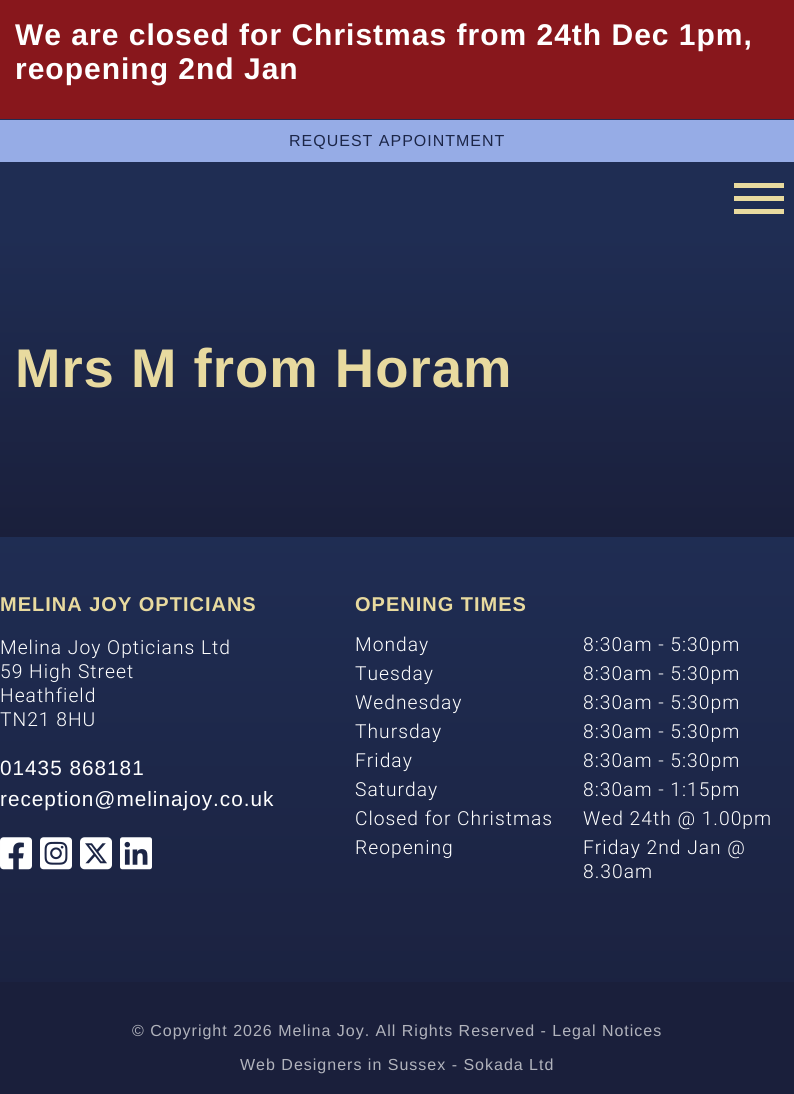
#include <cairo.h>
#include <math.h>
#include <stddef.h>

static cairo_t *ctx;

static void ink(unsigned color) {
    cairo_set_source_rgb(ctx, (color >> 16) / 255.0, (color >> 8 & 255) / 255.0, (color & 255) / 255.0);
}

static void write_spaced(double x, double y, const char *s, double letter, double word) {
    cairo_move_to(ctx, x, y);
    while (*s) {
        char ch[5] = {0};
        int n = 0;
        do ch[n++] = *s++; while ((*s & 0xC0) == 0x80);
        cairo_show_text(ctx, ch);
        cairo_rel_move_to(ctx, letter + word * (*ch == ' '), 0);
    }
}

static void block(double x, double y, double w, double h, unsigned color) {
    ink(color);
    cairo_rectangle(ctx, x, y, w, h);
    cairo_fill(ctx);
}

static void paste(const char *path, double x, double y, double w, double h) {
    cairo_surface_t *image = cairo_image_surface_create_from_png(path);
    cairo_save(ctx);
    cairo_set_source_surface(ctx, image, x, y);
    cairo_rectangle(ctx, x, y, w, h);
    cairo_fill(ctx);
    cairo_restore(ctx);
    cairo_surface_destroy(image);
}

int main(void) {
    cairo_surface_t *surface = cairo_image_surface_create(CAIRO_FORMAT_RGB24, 794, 1094);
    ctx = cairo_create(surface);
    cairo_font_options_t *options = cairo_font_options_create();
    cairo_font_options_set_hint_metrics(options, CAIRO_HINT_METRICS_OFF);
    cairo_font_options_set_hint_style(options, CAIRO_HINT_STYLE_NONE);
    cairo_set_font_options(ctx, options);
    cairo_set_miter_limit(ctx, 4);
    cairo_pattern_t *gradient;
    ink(0x88171c);
    cairo_paint(ctx);
    cairo_select_font_face(ctx, "Liberation Sans", CAIRO_FONT_SLANT_NORMAL, CAIRO_FONT_WEIGHT_BOLD);
    cairo_set_font_size(ctx, 30);
    ink(0xffffff);
    write_spaced(15, 45, "We are closed for Christmas from 24th Dec 1pm,", 1, 0);
    write_spaced(15, 79, "reopening 2nd Jan", 1, 0);
    block(0, 119, 794, 119, 0x1f2d53);
    block(0, 120, 794, 42, 0x96ace6);
    cairo_select_font_face(ctx, "Liberation Sans", CAIRO_FONT_SLANT_NORMAL, CAIRO_FONT_WEIGHT_NORMAL);
    cairo_set_font_size(ctx, 16);
    ink(0x1c2648);
    write_spaced(289, 146, "REQUEST APPOINTMENT", 1, 0);
    block(734, 183, 50, 5, 0xe8da9f);
    block(734, 196, 50, 5, 0xe8da9f);
    block(734, 209, 50, 5, 0xe8da9f);
    gradient = cairo_pattern_create_linear(397, 238, 397, 537);
    cairo_pattern_add_color_stop_rgba(gradient, 0, 0.122, 0.176, 0.325, 1);
    cairo_pattern_add_color_stop_rgba(gradient, 1, 0.102, 0.122, 0.231, 1);
    cairo_set_source(ctx, gradient);
    cairo_pattern_destroy(gradient);
    cairo_rectangle(ctx, 0, 238, 794, 299);
    cairo_fill(ctx);
    cairo_select_font_face(ctx, "Liberation Sans", CAIRO_FONT_SLANT_NORMAL, CAIRO_FONT_WEIGHT_BOLD);
    cairo_set_font_size(ctx, 54.5);
    ink(0xe8da9f);
    write_spaced(15, 387, "Mrs M from Horam", 1, 0);
    gradient = cairo_pattern_create_linear(397, 537, 397, 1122);
    cairo_pattern_add_color_stop_rgba(gradient, 0, 0.122, 0.176, 0.325, 1);
    cairo_pattern_add_color_stop_rgba(gradient, 1, 0.102, 0.122, 0.231, 1);
    cairo_set_source(ctx, gradient);
    cairo_pattern_destroy(gradient);
    cairo_rectangle(ctx, 0, 537, 794, 445);
    cairo_fill(ctx);
    cairo_set_font_size(ctx, 20);
    ink(0xe8da9f);
    write_spaced(0, 611, "MELINA JOY OPTICIANS", 1, 0);
    cairo_select_font_face(ctx, "Roboto Light", CAIRO_FONT_SLANT_NORMAL, CAIRO_FONT_WEIGHT_NORMAL);
    cairo_set_font_size(ctx, 19.25);
    ink(0xffffff);
    write_spaced(0, 654, "Melina Joy Opticians Ltd", 1, 0);
    write_spaced(0, 678, "59 High Street", 1, 0);
    write_spaced(0, 702, "Heathfield", 1, 0);
    write_spaced(0, 726, "TN21 8HU", 1, 0);
    cairo_select_font_face(ctx, "Liberation Sans", CAIRO_FONT_SLANT_NORMAL, CAIRO_FONT_WEIGHT_NORMAL);
    cairo_set_font_size(ctx, 20.75);
    write_spaced(0, 775, "01435 868181", 1, 0);
    write_spaced(0, 806, "reception@melinajoy.co.uk", 1, 0);
    paste("pic1.png", 0, 837, 32, 33);
    paste("pic2.png", 40, 837, 32, 33);
    paste("pic3.png", 80, 837, 32, 33);
    paste("pic4.png", 120, 837, 32, 33);
    cairo_select_font_face(ctx, "Liberation Sans", CAIRO_FONT_SLANT_NORMAL, CAIRO_FONT_WEIGHT_BOLD);
    cairo_set_font_size(ctx, 20);
    ink(0xe8da9f);
    write_spaced(355, 611, "OPENING TIMES", 1, 0);
    cairo_select_font_face(ctx, "Roboto Light", CAIRO_FONT_SLANT_NORMAL, CAIRO_FONT_WEIGHT_NORMAL);
    cairo_set_font_size(ctx, 19.25);
    ink(0xffffff);
    write_spaced(355, 651, "Monday", 1, 0);
    write_spaced(583, 651, "8:30am - 5:30pm", 1, 0);
    write_spaced(355, 680, "Tuesday", 1, 0);
    write_spaced(583, 680, "8:30am - 5:30pm", 1, 0);
    write_spaced(355, 709, "Wednesday", 1, 0);
    write_spaced(583, 709, "8:30am - 5:30pm", 1, 0);
    write_spaced(355, 738, "Thursday", 1, 0);
    write_spaced(583, 738, "8:30am - 5:30pm", 1, 0);
    write_spaced(355, 767, "Friday", 1, 0);
    write_spaced(583, 767, "8:30am - 5:30pm", 1, 0);
    write_spaced(355, 796, "Saturday", 1, 0);
    write_spaced(583, 796, "8:30am - 1:15pm", 1, 0);
    write_spaced(355, 825, "Closed for Christmas", 1, 0);
    write_spaced(583, 825, "Wed 24th @ 1.00pm", 1, 0);
    write_spaced(355, 854, "Reopening", 1, 0);
    write_spaced(583, 854, "Friday 2nd Jan @", 1, 0);
    write_spaced(583, 878, "8.30am", 1, 0);
    block(0, 982, 794, 112, 0x1a1f3b);
    cairo_select_font_face(ctx, "Liberation Sans", CAIRO_FONT_SLANT_NORMAL, CAIRO_FONT_WEIGHT_NORMAL);
    cairo_set_font_size(ctx, 16);
    ink(0xb1b3bc);
    write_spaced(132, 1036, "© Copyright 2026 Melina Joy. All Rights Reserved - Legal Notices", 1, 0);
    write_spaced(240, 1070, "Web Designers in Sussex - Sokada Ltd", 1, 0);
    cairo_surface_write_to_png(surface, "screenshot.png");
    cairo_font_options_destroy(options);
    cairo_destroy(ctx);
    cairo_surface_destroy(surface);
    return 0;
}
